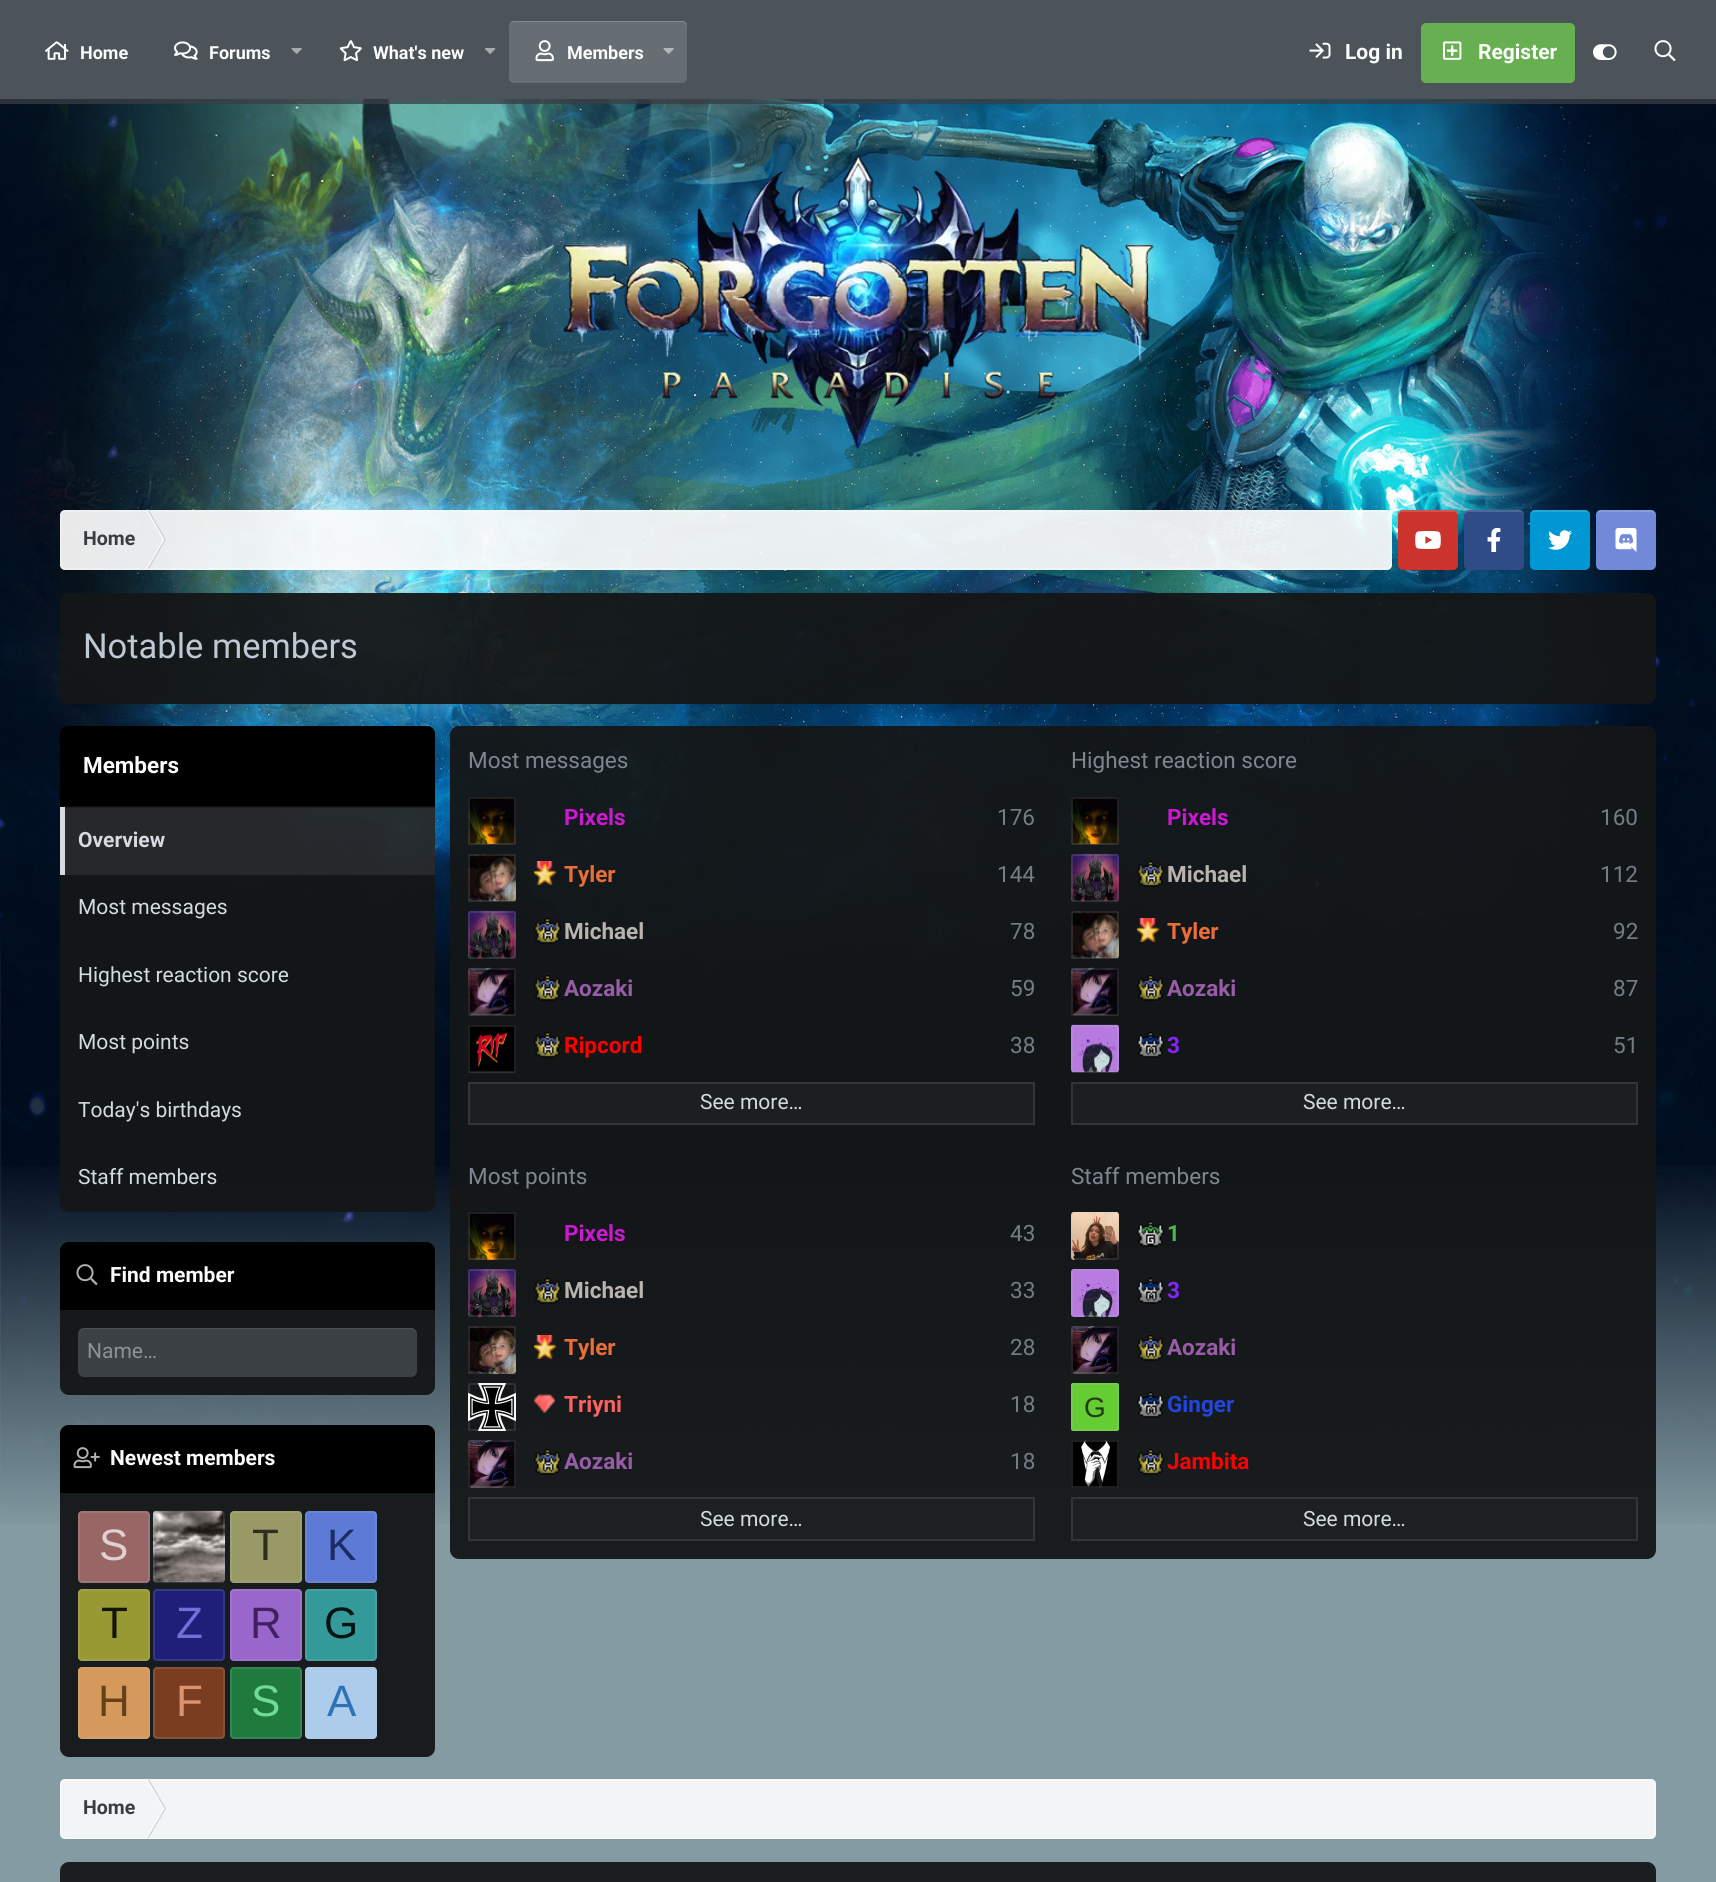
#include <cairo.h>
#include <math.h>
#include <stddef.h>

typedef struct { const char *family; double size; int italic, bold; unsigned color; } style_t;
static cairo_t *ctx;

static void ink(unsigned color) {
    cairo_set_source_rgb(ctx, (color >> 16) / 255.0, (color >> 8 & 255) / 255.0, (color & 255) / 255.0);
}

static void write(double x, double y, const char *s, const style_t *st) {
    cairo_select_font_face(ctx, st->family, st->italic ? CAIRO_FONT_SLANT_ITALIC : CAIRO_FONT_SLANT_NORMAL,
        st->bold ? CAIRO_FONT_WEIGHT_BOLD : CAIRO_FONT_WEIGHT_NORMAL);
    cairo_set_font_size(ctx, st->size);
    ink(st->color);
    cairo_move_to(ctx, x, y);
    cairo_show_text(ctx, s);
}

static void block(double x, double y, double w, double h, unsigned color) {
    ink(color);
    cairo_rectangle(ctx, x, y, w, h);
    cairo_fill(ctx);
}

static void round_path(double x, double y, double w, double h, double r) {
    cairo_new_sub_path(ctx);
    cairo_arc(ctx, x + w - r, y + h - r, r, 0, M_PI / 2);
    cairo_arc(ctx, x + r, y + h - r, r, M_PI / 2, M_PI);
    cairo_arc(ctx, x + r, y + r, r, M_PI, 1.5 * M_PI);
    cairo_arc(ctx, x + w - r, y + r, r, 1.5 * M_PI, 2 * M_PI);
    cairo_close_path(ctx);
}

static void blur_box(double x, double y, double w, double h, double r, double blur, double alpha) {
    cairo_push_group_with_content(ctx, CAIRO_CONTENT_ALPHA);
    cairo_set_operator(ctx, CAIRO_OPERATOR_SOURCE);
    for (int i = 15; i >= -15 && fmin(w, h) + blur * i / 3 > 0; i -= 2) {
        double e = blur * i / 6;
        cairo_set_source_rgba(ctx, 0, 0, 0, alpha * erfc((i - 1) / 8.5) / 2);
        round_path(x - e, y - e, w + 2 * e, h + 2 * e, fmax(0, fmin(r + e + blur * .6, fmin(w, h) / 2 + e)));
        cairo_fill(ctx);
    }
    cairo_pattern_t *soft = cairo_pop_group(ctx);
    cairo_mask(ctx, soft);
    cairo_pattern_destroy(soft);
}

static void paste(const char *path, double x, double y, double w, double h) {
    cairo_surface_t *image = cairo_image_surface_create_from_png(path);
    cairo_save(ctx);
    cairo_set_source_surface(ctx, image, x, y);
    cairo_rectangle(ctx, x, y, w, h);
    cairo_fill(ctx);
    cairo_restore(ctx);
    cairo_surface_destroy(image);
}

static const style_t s1 = {"Roboto", 18, 0, 1, 0xfcfcfc};
static const style_t s2 = {"Roboto", 21, 0, 1, 0xfcfcfc};
static const style_t s3 = {"Roboto", 19.5, 0, 1, 0x393d42};
static const style_t s4 = {"Roboto", 34.5, 0, 0, 0xbec9d3};
static const style_t s5 = {"Roboto", 22.5, 0, 1, 0xfcfcfc};
static const style_t s6 = {"Roboto", 21, 0, 1, 0xd5dbe1};
static const style_t s7 = {"Roboto", 21, 0, 0, 0xd5dbe1};
static const style_t s8 = {"Roboto", 21, 0, 0, 0x8a939a};
static const style_t s9 = {"Liberation Sans", 44, 0, 0, 0xe0d1d1};
static const style_t s10 = {"Liberation Sans", 44, 0, 0, 0x2e2e1f};
static const style_t s11 = {"Liberation Sans", 44, 0, 0, 0x1a2d66};
static const style_t s12 = {"Liberation Sans", 44, 0, 0, 0x131306};
static const style_t s13 = {"Liberation Sans", 44, 0, 0, 0x7070db};
static const style_t s14 = {"Liberation Sans", 44, 0, 0, 0x402060};
static const style_t s15 = {"Liberation Sans", 44, 0, 0, 0x061313};
static const style_t s16 = {"Liberation Sans", 44, 0, 0, 0x66401a};
static const style_t s17 = {"Liberation Sans", 44, 0, 0, 0xdb9470};
static const style_t s18 = {"Liberation Sans", 44, 0, 0, 0x70db94};
static const style_t s19 = {"Liberation Sans", 44, 0, 0, 0x2e73b8};
static const style_t s20 = {"Roboto", 22.5, 0, 0, 0x7e8790};
static const style_t s21 = {"Roboto", 22.5, 0, 1, 0xcb19d0};
static const style_t s22 = {"Roboto", 22.5, 0, 0, 0x757c85};
static const style_t s23 = {"Roboto", 22.5, 0, 1, 0xe96e38};
static const style_t s24 = {"Roboto", 22.5, 0, 1, 0xb9b4ad};
static const style_t s25 = {"Roboto", 22.5, 0, 1, 0x985da7};
static const style_t s26 = {"Roboto", 22.5, 0, 1, 0xff0000};
static const style_t s27 = {"Roboto", 22.5, 0, 1, 0x8624ff};
static const style_t s28 = {"Roboto", 22.5, 0, 1, 0xff6161};
static const style_t s29 = {"Roboto", 22.5, 0, 1, 0x4bb74c};
static const style_t s30 = {"Liberation Sans", 28, 0, 0, 0x1f3d0f};
static const style_t s31 = {"Roboto", 22.5, 0, 1, 0x2145dd};

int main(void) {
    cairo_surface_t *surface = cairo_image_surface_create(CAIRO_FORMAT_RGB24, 1716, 1882);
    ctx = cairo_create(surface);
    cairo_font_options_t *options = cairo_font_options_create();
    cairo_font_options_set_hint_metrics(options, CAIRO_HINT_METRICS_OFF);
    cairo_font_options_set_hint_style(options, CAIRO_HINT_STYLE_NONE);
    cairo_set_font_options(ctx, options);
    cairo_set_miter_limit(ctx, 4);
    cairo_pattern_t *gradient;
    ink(0x849ba3);
    cairo_paint(ctx);
    paste("pic56.png", 0, 99, 1716, 1425);
    cairo_set_source_rgba(ctx, 0.224, 0.239, 0.259, 0.75);
    cairo_rectangle(ctx, 0, 0, 1716, 104);
    cairo_fill(ctx);
    paste("pic1.png", 45, 41, 24, 19);
    write(80, 59, "Home", &s1);
    paste("pic2.png", 174, 41, 24, 19);
    write(209, 59, "Forums", &s1);
    paste("pic3.png", 291, 48, 11, 6);
    paste("pic4.png", 339, 40, 23, 22);
    write(373, 59, "What's new", &s1);
    paste("pic5.png", 485, 48, 11, 6);
    ink(0x676e73);
    round_path(509, 21, 178, 62, 5);
    cairo_fill(ctx);
    cairo_set_source_rgba(ctx, 1, 1, 1, 0.2);
    cairo_new_path(ctx);
    cairo_move_to(ctx, 513, 22);
    cairo_line_to(ctx, 682, 22);
    cairo_curve_to(ctx, 685, 22, 687, 25, 687, 27);
    cairo_line_to(ctx, 687, 26);
    cairo_curve_to(ctx, 687, 23, 685, 21, 682, 21);
    cairo_line_to(ctx, 514, 21);
    cairo_curve_to(ctx, 512, 21, 510, 22, 509, 24);
    cairo_curve_to(ctx, 510, 23, 512, 22, 513, 22);
    cairo_close_path(ctx);
    cairo_fill(ctx);
    paste("pic6.png", 535, 40, 19, 22);
    write(567, 59, "Members", &s1);
    paste("pic7.png", 663, 48, 11, 6);
    paste("pic8.png", 1309, 42, 22, 17);
    write(1345, 59, "Log in", &s2);
    ink(0x67af51);
    round_path(1421, 23, 154, 60, 5);
    cairo_fill(ctx);
    paste("pic9.png", 1443, 41, 19, 19);
    write(1478, 59, "Register", &s2);
    paste("pic10.png", 1593, 44, 24, 16);
    paste("pic11.png", 1654, 40, 22, 22);
    paste("pic12.png", 562, 155, 593, 295);
    cairo_set_source_rgba(ctx, 0.988, 0.988, 0.988, 0.92);
    round_path(60, 510, 1332, 60, 5);
    cairo_fill(ctx);
    cairo_save(ctx);
    cairo_rectangle(ctx, 60, 510, 1332, 60);
    cairo_clip(ctx);
    ink(0xfbfbfb);
    cairo_new_path(ctx);
    cairo_move_to(ctx, 145.5, 509.5);
    cairo_line_to(ctx, 147, 509.5);
    cairo_line_to(ctx, 164.5, 539.5);
    cairo_line_to(ctx, 163, 539.5);
    cairo_close_path(ctx);
    cairo_fill(ctx);
    cairo_restore(ctx);
    cairo_set_source_rgba(ctx, 0.788, 0.788, 0.788, 0.8);
    cairo_new_path(ctx);
    cairo_move_to(ctx, 147, 509.5);
    cairo_line_to(ctx, 148.5, 509.5);
    cairo_line_to(ctx, 166, 539.5);
    cairo_line_to(ctx, 164.5, 539.5);
    cairo_close_path(ctx);
    cairo_fill(ctx);
    ink(0xfbfbfb);
    cairo_new_path(ctx);
    cairo_move_to(ctx, 163, 539.5);
    cairo_line_to(ctx, 164.5, 539.5);
    cairo_line_to(ctx, 147, 569.5);
    cairo_line_to(ctx, 145.5, 569.5);
    cairo_close_path(ctx);
    cairo_fill(ctx);
    cairo_set_source_rgba(ctx, 0.788, 0.788, 0.788, 0.8);
    cairo_new_path(ctx);
    cairo_move_to(ctx, 164.5, 539.5);
    cairo_line_to(ctx, 166, 539.5);
    cairo_line_to(ctx, 148.5, 569.5);
    cairo_line_to(ctx, 147, 569.5);
    cairo_close_path(ctx);
    cairo_fill(ctx);
    round_path(61, 511, 1330, 58, 4);
    cairo_set_source_rgba(ctx, 1, 1, 1, 0.25);
    cairo_stroke(ctx);
    write(83, 545, "Home", &s3);
    ink(0x000000);
    blur_box(1398, 512, 60, 60, 5, 2, 0.1);
    ink(0xcc332d);
    round_path(1398, 510, 60, 60, 5);
    cairo_fill(ctx);
    cairo_set_source_rgba(ctx, 1, 1, 1, 0.15);
    cairo_new_path(ctx);
    cairo_move_to(ctx, 1402, 512);
    cairo_line_to(ctx, 1454, 512);
    cairo_curve_to(ctx, 1456, 512, 1458, 514, 1458, 516);
    cairo_curve_to(ctx, 1458, 508, 1451, 510, 1445, 510);
    cairo_line_to(ctx, 1411, 510);
    cairo_curve_to(ctx, 1405, 510, 1398, 508, 1398, 516);
    cairo_curve_to(ctx, 1398, 514, 1400, 512, 1402, 512);
    cairo_close_path(ctx);
    cairo_fill(ctx);
    paste("pic13.png", 1415, 531, 26, 18);
    ink(0x000000);
    blur_box(1464, 512, 60, 60, 5, 2, 0.1);
    ink(0x304c87);
    round_path(1464, 510, 60, 60, 5);
    cairo_fill(ctx);
    cairo_set_source_rgba(ctx, 1, 1, 1, 0.15);
    cairo_new_path(ctx);
    cairo_move_to(ctx, 1468, 512);
    cairo_line_to(ctx, 1520, 512);
    cairo_curve_to(ctx, 1522, 512, 1524, 514, 1524, 516);
    cairo_curve_to(ctx, 1524, 508, 1517, 510, 1511, 510);
    cairo_line_to(ctx, 1477, 510);
    cairo_curve_to(ctx, 1471, 510, 1464, 508, 1464, 516);
    cairo_curve_to(ctx, 1464, 514, 1466, 512, 1468, 512);
    cairo_close_path(ctx);
    cairo_fill(ctx);
    paste("pic14.png", 1487, 528, 14, 24);
    ink(0x000000);
    blur_box(1530, 512, 60, 60, 5, 2, 0.1);
    ink(0x0097d3);
    round_path(1530, 510, 60, 60, 5);
    cairo_fill(ctx);
    cairo_set_source_rgba(ctx, 1, 1, 1, 0.15);
    cairo_new_path(ctx);
    cairo_move_to(ctx, 1534, 512);
    cairo_line_to(ctx, 1586, 512);
    cairo_curve_to(ctx, 1588, 512, 1590, 514, 1590, 516);
    cairo_curve_to(ctx, 1590, 508, 1583, 510, 1577, 510);
    cairo_line_to(ctx, 1543, 510);
    cairo_curve_to(ctx, 1537, 510, 1530, 508, 1530, 516);
    cairo_curve_to(ctx, 1530, 514, 1532, 512, 1534, 512);
    cairo_close_path(ctx);
    cairo_fill(ctx);
    paste("pic15.png", 1548, 530, 24, 20);
    ink(0x7289da);
    round_path(1596, 510, 60, 60, 5);
    cairo_fill(ctx);
    cairo_set_source_rgba(ctx, 1, 1, 1, 0.15);
    cairo_new_path(ctx);
    cairo_move_to(ctx, 1600, 512);
    cairo_line_to(ctx, 1652, 512);
    cairo_curve_to(ctx, 1654, 512, 1656, 514, 1656, 516);
    cairo_curve_to(ctx, 1656, 508, 1649, 510, 1643, 510);
    cairo_line_to(ctx, 1609, 510);
    cairo_curve_to(ctx, 1603, 510, 1596, 508, 1596, 516);
    cairo_curve_to(ctx, 1596, 514, 1598, 512, 1600, 512);
    cairo_close_path(ctx);
    cairo_fill(ctx);
    paste("pic16.png", 1615, 528, 22, 24);
    cairo_save(ctx);
    cairo_set_fill_rule(ctx, CAIRO_FILL_RULE_EVEN_ODD);
    cairo_new_path(ctx);
    cairo_move_to(ctx, 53, 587);
    cairo_line_to(ctx, 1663, 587);
    cairo_line_to(ctx, 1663, 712);
    cairo_line_to(ctx, 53, 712);
    cairo_close_path(ctx);
    cairo_move_to(ctx, 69, 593);
    cairo_line_to(ctx, 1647, 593);
    cairo_curve_to(ctx, 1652, 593, 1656, 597, 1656, 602);
    cairo_line_to(ctx, 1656, 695);
    cairo_curve_to(ctx, 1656, 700, 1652, 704, 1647, 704);
    cairo_line_to(ctx, 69, 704);
    cairo_curve_to(ctx, 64, 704, 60, 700, 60, 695);
    cairo_line_to(ctx, 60, 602);
    cairo_curve_to(ctx, 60, 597, 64, 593, 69, 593);
    cairo_close_path(ctx);
    cairo_clip(ctx);
    ink(0x000000);
    blur_box(60, 594, 1596, 111, 9, 2, 0.08);
    cairo_restore(ctx);
    cairo_set_source_rgba(ctx, 0.082, 0.09, 0.094, 0.95);
    round_path(60, 593, 1596, 111, 9);
    cairo_fill(ctx);
    write(83, 658, "Notable members", &s4);
    gradient = cairo_pattern_create_linear(858, 1158, 858, 1533);
    cairo_pattern_add_color_stop_rgba(gradient, 0, 0.518, 0.608, 0.639, 0);
    cairo_pattern_add_color_stop_rgba(gradient, 1, 0.518, 0.608, 0.639, 1);
    cairo_set_source(ctx, gradient);
    cairo_pattern_destroy(gradient);
    cairo_rectangle(ctx, 0, 1166, 1716, 358);
    cairo_fill(ctx);
    cairo_set_source_rgba(ctx, 0.082, 0.09, 0.094, 0.95);
    round_path(60, 726, 375, 486, 9);
    cairo_fill(ctx);
    ink(0x000000);
    cairo_new_path(ctx);
    cairo_move_to(ctx, 68, 726);
    cairo_line_to(ctx, 427, 726);
    cairo_curve_to(ctx, 431.5, 726, 435, 729.5, 435, 734);
    cairo_line_to(ctx, 435, 806);
    cairo_line_to(ctx, 60, 806);
    cairo_line_to(ctx, 60, 734);
    cairo_curve_to(ctx, 60, 729.5, 63.5, 726, 68, 726);
    cairo_close_path(ctx);
    cairo_fill(ctx);
    block(60, 806, 375, 2, 0x0d0d0d);
    write(83, 773, "Members", &s5);
    cairo_set_source_rgba(ctx, 0.988, 0.988, 0.988, 0.08);
    cairo_rectangle(ctx, 65, 807, 370, 68);
    cairo_fill(ctx);
    block(60, 807, 5, 68, 0xd5dbe1);
    write(78, 847, "Overview", &s6);
    write(78, 914, "Most messages", &s7);
    write(78, 982, "Highest reaction score", &s7);
    write(78, 1049, "Most points", &s7);
    write(78, 1117, "Today's birthdays", &s7);
    write(78, 1184, "Staff members", &s7);
    cairo_set_source_rgba(ctx, 0.082, 0.09, 0.094, 0.95);
    round_path(60, 1242, 375, 153, 9);
    cairo_fill(ctx);
    ink(0x000000);
    cairo_new_path(ctx);
    cairo_move_to(ctx, 69, 1242);
    cairo_line_to(ctx, 426, 1242);
    cairo_curve_to(ctx, 431, 1242, 435, 1246, 435, 1251);
    cairo_line_to(ctx, 435, 1310);
    cairo_line_to(ctx, 60, 1310);
    cairo_line_to(ctx, 60, 1251);
    cairo_curve_to(ctx, 60, 1246, 64, 1242, 69, 1242);
    cairo_close_path(ctx);
    cairo_fill(ctx);
    paste("pic17.png", 76, 1264, 22, 22);
    write(110, 1282, "Find member", &s2);
    ink(0x3b4144);
    round_path(78, 1328, 339, 49, 6);
    cairo_fill(ctx);
    cairo_set_source_rgba(ctx, 1, 1, 1, 0.1);
    cairo_new_path(ctx);
    cairo_move_to(ctx, 84, 1329);
    cairo_line_to(ctx, 411, 1329);
    cairo_curve_to(ctx, 414, 1329, 417, 1332, 417, 1335);
    cairo_line_to(ctx, 417, 1334);
    cairo_curve_to(ctx, 417, 1331, 414, 1328, 411, 1328);
    cairo_line_to(ctx, 84, 1328);
    cairo_curve_to(ctx, 81, 1328, 78, 1331, 78, 1334);
    cairo_line_to(ctx, 78, 1335);
    cairo_curve_to(ctx, 78, 1332, 81, 1329, 84, 1329);
    cairo_close_path(ctx);
    cairo_fill(ctx);
    write(87, 1358, "Name…", &s8);
    cairo_set_source_rgba(ctx, 0.082, 0.09, 0.094, 0.95);
    round_path(60, 1425, 375, 332, 9);
    cairo_fill(ctx);
    ink(0x000000);
    cairo_new_path(ctx);
    cairo_move_to(ctx, 69, 1425);
    cairo_line_to(ctx, 426, 1425);
    cairo_curve_to(ctx, 431, 1425, 435, 1429, 435, 1434);
    cairo_line_to(ctx, 435, 1493);
    cairo_line_to(ctx, 60, 1493);
    cairo_line_to(ctx, 60, 1434);
    cairo_curve_to(ctx, 60, 1429, 64, 1425, 69, 1425);
    cairo_close_path(ctx);
    cairo_fill(ctx);
    paste("pic18.png", 73, 1447, 27, 22);
    write(110, 1465, "Newest members", &s2);
    ink(0x996666);
    round_path(78, 1511, 72, 72, 4);
    cairo_fill(ctx);
    round_path(79, 1512, 70, 70, 3);
    cairo_set_source_rgba(ctx, 0.745, 0.788, 0.827, 0.15);
    cairo_stroke(ctx);
    write(99, 1560, "S", &s9);
    ink(0x151718);
    round_path(153, 1511, 72, 72, 4);
    cairo_fill(ctx);
    paste("pic19.png", 153, 1510, 72, 73);
    round_path(154, 1512, 70, 70, 3);
    cairo_set_source_rgba(ctx, 0.745, 0.788, 0.827, 0.15);
    cairo_stroke(ctx);
    ink(0x999966);
    round_path(230, 1511, 72, 72, 4);
    cairo_fill(ctx);
    round_path(231, 1512, 70, 70, 3);
    cairo_set_source_rgba(ctx, 0.745, 0.788, 0.827, 0.15);
    cairo_stroke(ctx);
    write(252, 1560, "T", &s10);
    ink(0x5c7ad6);
    round_path(305, 1511, 72, 72, 4);
    cairo_fill(ctx);
    round_path(306, 1512, 70, 70, 3);
    cairo_set_source_rgba(ctx, 0.745, 0.788, 0.827, 0.15);
    cairo_stroke(ctx);
    write(327, 1560, "K", &s11);
    ink(0x999933);
    round_path(78, 1589, 72, 72, 4);
    cairo_fill(ctx);
    round_path(79, 1590, 70, 70, 3);
    cairo_set_source_rgba(ctx, 0.745, 0.788, 0.827, 0.15);
    cairo_stroke(ctx);
    write(101, 1638, "T", &s12);
    ink(0x1f1f7a);
    round_path(153, 1589, 72, 72, 4);
    cairo_fill(ctx);
    round_path(154, 1590, 70, 70, 3);
    cairo_set_source_rgba(ctx, 0.745, 0.788, 0.827, 0.15);
    cairo_stroke(ctx);
    write(176, 1638, "Z", &s13);
    ink(0x9966cc);
    round_path(230, 1589, 72, 72, 4);
    cairo_fill(ctx);
    round_path(231, 1590, 70, 70, 3);
    cairo_set_source_rgba(ctx, 0.745, 0.788, 0.827, 0.15);
    cairo_stroke(ctx);
    write(250, 1638, "R", &s14);
    ink(0x339999);
    round_path(305, 1589, 72, 72, 4);
    cairo_fill(ctx);
    round_path(306, 1590, 70, 70, 3);
    cairo_set_source_rgba(ctx, 0.745, 0.788, 0.827, 0.15);
    cairo_stroke(ctx);
    write(324, 1638, "G", &s15);
    ink(0xd6995c);
    round_path(78, 1667, 72, 72, 4);
    cairo_fill(ctx);
    round_path(79, 1668, 70, 70, 3);
    cairo_set_source_rgba(ctx, 0.745, 0.788, 0.827, 0.15);
    cairo_stroke(ctx);
    write(98, 1716, "H", &s16);
    ink(0x7a3d1f);
    round_path(153, 1667, 72, 72, 4);
    cairo_fill(ctx);
    round_path(154, 1668, 70, 70, 3);
    cairo_set_source_rgba(ctx, 0.745, 0.788, 0.827, 0.15);
    cairo_stroke(ctx);
    write(176, 1716, "F", &s17);
    ink(0x1f7a3d);
    round_path(230, 1667, 72, 72, 4);
    cairo_fill(ctx);
    round_path(231, 1668, 70, 70, 3);
    cairo_set_source_rgba(ctx, 0.745, 0.788, 0.827, 0.15);
    cairo_stroke(ctx);
    write(251, 1716, "S", &s18);
    ink(0xadcceb);
    round_path(305, 1667, 72, 72, 4);
    cairo_fill(ctx);
    round_path(306, 1668, 70, 70, 3);
    cairo_set_source_rgba(ctx, 0.745, 0.788, 0.827, 0.15);
    cairo_stroke(ctx);
    write(327, 1716, "A", &s19);
    cairo_set_source_rgba(ctx, 0.082, 0.09, 0.094, 0.95);
    round_path(450, 726, 1206, 833, 9);
    cairo_fill(ctx);
    write(468, 768, "Most messages", &s20);
    cairo_set_source_rgba(ctx, 0.082, 0.09, 0.094, 0.95);
    round_path(468, 797, 48, 48, 2);
    cairo_fill(ctx);
    paste("pic20.png", 468, 797, 48, 48);
    round_path(469, 798, 46, 46, 1);
    cairo_set_source_rgba(ctx, 0.745, 0.788, 0.827, 0.15);
    cairo_stroke(ctx);
    write(564, 825, "Pixels", &s21);
    write(997, 825, "176", &s22);
    cairo_set_source_rgba(ctx, 0.082, 0.09, 0.094, 0.95);
    round_path(468, 854, 48, 48, 2);
    cairo_fill(ctx);
    paste("pic21.png", 468, 854, 48, 48);
    round_path(469, 855, 46, 46, 1);
    cairo_set_source_rgba(ctx, 0.745, 0.788, 0.827, 0.15);
    cairo_stroke(ctx);
    paste("pic22.png", 534, 861, 23, 24);
    write(564, 882, "Tyler", &s23);
    write(997, 882, "144", &s22);
    cairo_set_source_rgba(ctx, 0.082, 0.09, 0.094, 0.95);
    round_path(468, 911, 48, 48, 2);
    cairo_fill(ctx);
    paste("pic23.png", 468, 910, 48, 49);
    round_path(469, 912, 46, 46, 1);
    cairo_set_source_rgba(ctx, 0.745, 0.788, 0.827, 0.15);
    cairo_stroke(ctx);
    paste("pic24.png", 534, 918, 27, 26);
    write(564, 939, "Michael", &s24);
    write(1010, 939, "78", &s22);
    paste("pic25.png", 468, 967, 48, 49);
    round_path(469, 969, 46, 46, 1);
    cairo_set_source_rgba(ctx, 0.745, 0.788, 0.827, 0.15);
    cairo_stroke(ctx);
    paste("pic26.png", 534, 975, 27, 26);
    write(564, 996, "Aozaki", &s25);
    write(1010, 996, "59", &s22);
    cairo_set_source_rgba(ctx, 0.082, 0.09, 0.094, 0.95);
    round_path(468, 1025, 48, 48, 2);
    cairo_fill(ctx);
    paste("pic27.png", 468, 1025, 48, 47);
    round_path(469, 1026, 46, 46, 1);
    cairo_set_source_rgba(ctx, 0.745, 0.788, 0.827, 0.15);
    cairo_stroke(ctx);
    paste("pic28.png", 534, 1032, 27, 26);
    write(564, 1053, "Ripcord", &s26);
    write(1010, 1053, "38", &s22);
    cairo_set_source_rgba(ctx, 0.114, 0.125, 0.133, 0.95);
    cairo_rectangle(ctx, 469, 1083, 565, 41);
    cairo_fill_preserve(ctx);
    ink(0x323639);
    cairo_stroke(ctx);
    write(700, 1109, "See more…", &s7);
    write(1071, 768, "Highest reaction score", &s20);
    cairo_set_source_rgba(ctx, 0.082, 0.09, 0.094, 0.95);
    round_path(1071, 797, 48, 48, 2);
    cairo_fill(ctx);
    paste("pic29.png", 1071, 797, 48, 48);
    round_path(1072, 798, 46, 46, 1);
    cairo_set_source_rgba(ctx, 0.745, 0.788, 0.827, 0.15);
    cairo_stroke(ctx);
    write(1167, 825, "Pixels", &s21);
    write(1600, 825, "160", &s22);
    cairo_set_source_rgba(ctx, 0.082, 0.09, 0.094, 0.95);
    round_path(1071, 854, 48, 48, 2);
    cairo_fill(ctx);
    paste("pic30.png", 1071, 853, 48, 49);
    round_path(1072, 855, 46, 46, 1);
    cairo_set_source_rgba(ctx, 0.745, 0.788, 0.827, 0.15);
    cairo_stroke(ctx);
    paste("pic31.png", 1137, 861, 27, 26);
    write(1167, 882, "Michael", &s24);
    write(1600, 882, "112", &s22);
    cairo_set_source_rgba(ctx, 0.082, 0.09, 0.094, 0.95);
    round_path(1071, 911, 48, 48, 2);
    cairo_fill(ctx);
    paste("pic32.png", 1071, 911, 48, 48);
    round_path(1072, 912, 46, 46, 1);
    cairo_set_source_rgba(ctx, 0.745, 0.788, 0.827, 0.15);
    cairo_stroke(ctx);
    paste("pic33.png", 1137, 918, 23, 24);
    write(1167, 939, "Tyler", &s23);
    write(1613, 939, "92", &s22);
    paste("pic34.png", 1071, 967, 48, 49);
    round_path(1072, 969, 46, 46, 1);
    cairo_set_source_rgba(ctx, 0.745, 0.788, 0.827, 0.15);
    cairo_stroke(ctx);
    paste("pic35.png", 1137, 975, 27, 26);
    write(1167, 996, "Aozaki", &s25);
    write(1613, 996, "87", &s22);
    paste("pic36.png", 1071, 1024, 48, 49);
    round_path(1072, 1026, 46, 46, 1);
    cairo_set_source_rgba(ctx, 0.745, 0.788, 0.827, 0.15);
    cairo_stroke(ctx);
    paste("pic37.png", 1137, 1032, 27, 26);
    write(1167, 1053, "3", &s27);
    write(1613, 1053, "51", &s22);
    cairo_set_source_rgba(ctx, 0.114, 0.125, 0.133, 0.95);
    cairo_rectangle(ctx, 1072, 1083, 565, 41);
    cairo_fill_preserve(ctx);
    ink(0x323639);
    cairo_stroke(ctx);
    write(1303, 1109, "See more…", &s7);
    write(468, 1184, "Most points", &s20);
    cairo_set_source_rgba(ctx, 0.082, 0.09, 0.094, 0.95);
    round_path(468, 1212, 48, 48, 2);
    cairo_fill(ctx);
    paste("pic38.png", 468, 1212, 48, 48);
    round_path(469, 1213, 46, 46, 1);
    cairo_set_source_rgba(ctx, 0.745, 0.788, 0.827, 0.15);
    cairo_stroke(ctx);
    write(564, 1241, "Pixels", &s21);
    write(1010, 1241, "43", &s22);
    ink(0x151718);
    round_path(468, 1269, 48, 48, 2);
    cairo_fill(ctx);
    paste("pic39.png", 468, 1269, 48, 48);
    round_path(469, 1270, 46, 46, 1);
    cairo_set_source_rgba(ctx, 0.745, 0.788, 0.827, 0.15);
    cairo_stroke(ctx);
    paste("pic40.png", 534, 1278, 27, 26);
    write(564, 1298, "Michael", &s24);
    write(1010, 1298, "33", &s22);
    cairo_set_source_rgba(ctx, 0.082, 0.09, 0.094, 0.95);
    round_path(468, 1326, 48, 48, 2);
    cairo_fill(ctx);
    paste("pic41.png", 468, 1326, 48, 48);
    round_path(469, 1327, 46, 46, 1);
    cairo_set_source_rgba(ctx, 0.745, 0.788, 0.827, 0.15);
    cairo_stroke(ctx);
    paste("pic42.png", 534, 1335, 23, 24);
    write(564, 1355, "Tyler", &s23);
    write(1010, 1355, "28", &s22);
    ink(0x151718);
    round_path(468, 1383, 48, 48, 2);
    cairo_fill(ctx);
    paste("pic43.png", 468, 1383, 48, 48);
    round_path(469, 1384, 46, 46, 1);
    cairo_set_source_rgba(ctx, 0.745, 0.788, 0.827, 0.15);
    cairo_stroke(ctx);
    paste("pic44.png", 534, 1393, 21, 20);
    write(564, 1412, "Triyni", &s28);
    write(1010, 1412, "18", &s22);
    ink(0x151718);
    round_path(468, 1440, 48, 48, 2);
    cairo_fill(ctx);
    paste("pic45.png", 468, 1440, 48, 48);
    round_path(469, 1441, 46, 46, 1);
    cairo_set_source_rgba(ctx, 0.745, 0.788, 0.827, 0.15);
    cairo_stroke(ctx);
    paste("pic46.png", 534, 1449, 27, 26);
    write(564, 1469, "Aozaki", &s25);
    write(1010, 1469, "18", &s22);
    ink(0x1d2022);
    cairo_rectangle(ctx, 469, 1498, 565, 42);
    cairo_fill_preserve(ctx);
    ink(0x323639);
    cairo_stroke(ctx);
    write(700, 1526, "See more…", &s7);
    write(1071, 1184, "Staff members", &s20);
    paste("pic47.png", 1071, 1212, 48, 48);
    round_path(1072, 1213, 46, 46, 1);
    cairo_set_source_rgba(ctx, 0.745, 0.788, 0.827, 0.15);
    cairo_stroke(ctx);
    paste("pic48.png", 1137, 1221, 27, 26);
    write(1167, 1241, "1", &s29);
    ink(0x151718);
    round_path(1071, 1269, 48, 48, 2);
    cairo_fill(ctx);
    paste("pic49.png", 1071, 1269, 48, 48);
    round_path(1072, 1270, 46, 46, 1);
    cairo_set_source_rgba(ctx, 0.745, 0.788, 0.827, 0.15);
    cairo_stroke(ctx);
    paste("pic50.png", 1137, 1278, 27, 26);
    write(1167, 1298, "3", &s27);
    ink(0x151718);
    round_path(1071, 1326, 48, 48, 2);
    cairo_fill(ctx);
    paste("pic51.png", 1071, 1326, 48, 48);
    round_path(1072, 1327, 46, 46, 1);
    cairo_set_source_rgba(ctx, 0.745, 0.788, 0.827, 0.15);
    cairo_stroke(ctx);
    paste("pic52.png", 1137, 1335, 27, 26);
    write(1167, 1355, "Aozaki", &s25);
    ink(0x66cc33);
    round_path(1071, 1383, 48, 48, 2);
    cairo_fill(ctx);
    round_path(1072, 1384, 46, 46, 1);
    cairo_set_source_rgba(ctx, 0.745, 0.788, 0.827, 0.15);
    cairo_stroke(ctx);
    write(1084, 1417, "G", &s30);
    paste("pic53.png", 1137, 1392, 27, 26);
    write(1167, 1412, "Ginger", &s31);
    ink(0x151718);
    round_path(1071, 1440, 48, 48, 2);
    cairo_fill(ctx);
    paste("pic54.png", 1071, 1440, 48, 48);
    round_path(1072, 1441, 46, 46, 1);
    cairo_set_source_rgba(ctx, 0.745, 0.788, 0.827, 0.15);
    cairo_stroke(ctx);
    paste("pic55.png", 1137, 1449, 27, 26);
    write(1167, 1469, "Jambita", &s26);
    ink(0x1d2022);
    cairo_rectangle(ctx, 1072, 1498, 565, 42);
    cairo_fill_preserve(ctx);
    ink(0x323639);
    cairo_stroke(ctx);
    write(1303, 1526, "See more…", &s7);
    ink(0xf2f4f5);
    round_path(60, 1779, 1596, 60, 5);
    cairo_fill(ctx);
    cairo_save(ctx);
    cairo_rectangle(ctx, 60, 1779, 1596, 60);
    cairo_clip(ctx);
    ink(0xfcfdfd);
    cairo_new_path(ctx);
    cairo_move_to(ctx, 145.5, 1778.5);
    cairo_line_to(ctx, 147, 1778.5);
    cairo_line_to(ctx, 164.5, 1808.5);
    cairo_line_to(ctx, 163, 1808.5);
    cairo_close_path(ctx);
    cairo_fill(ctx);
    cairo_restore(ctx);
    cairo_set_source_rgba(ctx, 0.788, 0.788, 0.788, 0.8);
    cairo_new_path(ctx);
    cairo_move_to(ctx, 147, 1778.5);
    cairo_line_to(ctx, 148.5, 1778.5);
    cairo_line_to(ctx, 166, 1808.5);
    cairo_line_to(ctx, 164.5, 1808.5);
    cairo_close_path(ctx);
    cairo_fill(ctx);
    ink(0xfcfdfd);
    cairo_new_path(ctx);
    cairo_move_to(ctx, 163, 1808.5);
    cairo_line_to(ctx, 164.5, 1808.5);
    cairo_line_to(ctx, 147, 1838.5);
    cairo_line_to(ctx, 145.5, 1838.5);
    cairo_close_path(ctx);
    cairo_fill(ctx);
    cairo_set_source_rgba(ctx, 0.788, 0.788, 0.788, 0.8);
    cairo_new_path(ctx);
    cairo_move_to(ctx, 164.5, 1808.5);
    cairo_line_to(ctx, 166, 1808.5);
    cairo_line_to(ctx, 148.5, 1838.5);
    cairo_line_to(ctx, 147, 1838.5);
    cairo_close_path(ctx);
    cairo_fill(ctx);
    round_path(61, 1780, 1594, 58, 4);
    cairo_set_source_rgba(ctx, 1, 1, 1, 0.25);
    cairo_stroke(ctx);
    write(83, 1814, "Home", &s3);
    ink(0x1b1e1f);
    round_path(60, 1862, 1596, 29, 9);
    cairo_fill(ctx);
    cairo_surface_write_to_png(surface, "screenshot.png");
    cairo_font_options_destroy(options);
    cairo_destroy(ctx);
    cairo_surface_destroy(surface);
    return 0;
}
